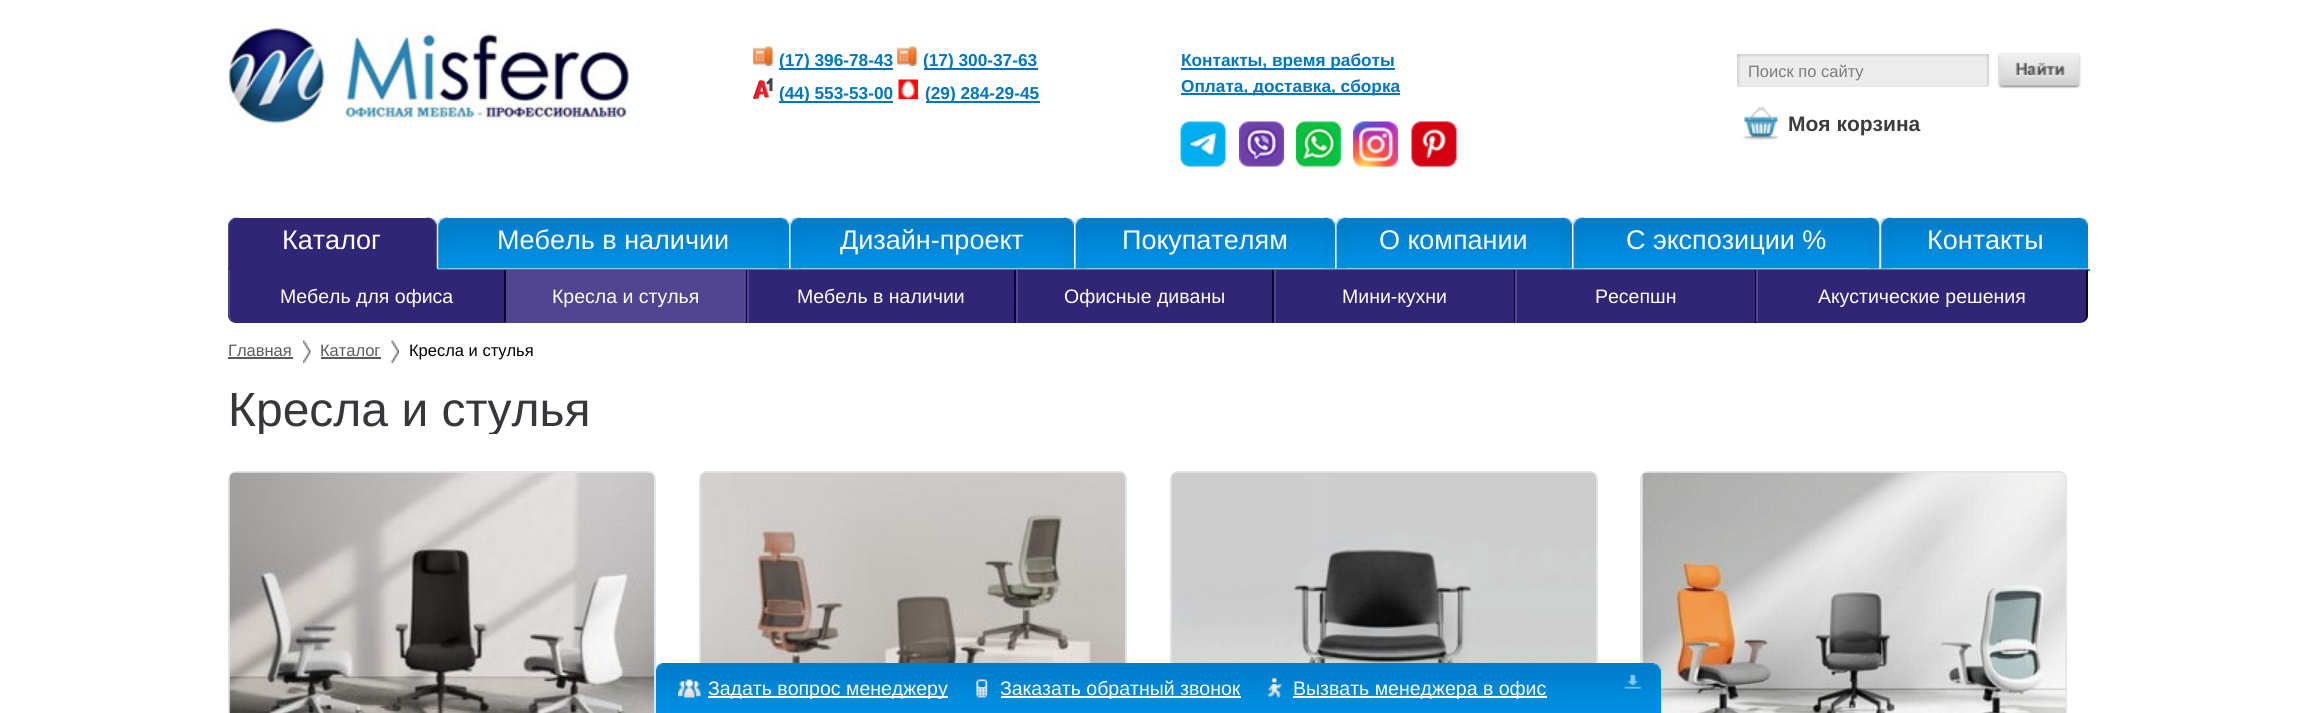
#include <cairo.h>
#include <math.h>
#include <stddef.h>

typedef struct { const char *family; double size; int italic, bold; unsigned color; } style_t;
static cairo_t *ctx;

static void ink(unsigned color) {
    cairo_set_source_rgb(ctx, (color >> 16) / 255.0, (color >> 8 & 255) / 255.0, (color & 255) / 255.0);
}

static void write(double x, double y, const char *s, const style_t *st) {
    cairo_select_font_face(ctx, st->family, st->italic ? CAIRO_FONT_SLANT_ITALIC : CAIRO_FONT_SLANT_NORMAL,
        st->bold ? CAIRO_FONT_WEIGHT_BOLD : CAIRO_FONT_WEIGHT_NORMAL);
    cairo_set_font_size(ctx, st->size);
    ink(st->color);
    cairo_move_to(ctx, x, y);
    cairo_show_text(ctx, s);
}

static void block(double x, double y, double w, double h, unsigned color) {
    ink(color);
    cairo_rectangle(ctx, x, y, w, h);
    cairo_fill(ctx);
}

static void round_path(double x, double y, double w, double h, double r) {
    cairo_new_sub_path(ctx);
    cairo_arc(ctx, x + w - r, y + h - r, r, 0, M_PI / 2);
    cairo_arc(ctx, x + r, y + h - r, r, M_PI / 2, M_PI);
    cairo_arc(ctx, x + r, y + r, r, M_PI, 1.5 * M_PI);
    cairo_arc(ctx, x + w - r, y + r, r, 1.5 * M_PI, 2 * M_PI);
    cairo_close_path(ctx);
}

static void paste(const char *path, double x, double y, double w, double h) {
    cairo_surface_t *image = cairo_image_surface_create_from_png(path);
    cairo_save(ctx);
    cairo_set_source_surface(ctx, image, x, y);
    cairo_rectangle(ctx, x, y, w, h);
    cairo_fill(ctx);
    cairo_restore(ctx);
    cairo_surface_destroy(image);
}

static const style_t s1 = {"Liberation Sans", 17.25, 0, 1, 0x0075c0};
static const style_t s2 = {"Liberation Sans", 16.5, 0, 0, 0x7c7c7c};
static const style_t s3 = {"Liberation Sans", 21, 0, 1, 0x3d3d3d};
static const style_t s4 = {"Liberation Sans", 27, 0, 0, 0xffffff};
static const style_t s5 = {"Liberation Sans", 19.5, 0, 0, 0xffffff};
static const style_t s6 = {"Liberation Sans", 16.5, 0, 0, 0x5b5b5b};
static const style_t s7 = {"Liberation Sans", 16.5, 0, 0, 0x000000};
static const style_t s8 = {"Liberation Sans", 48, 0, 0, 0x36373a};

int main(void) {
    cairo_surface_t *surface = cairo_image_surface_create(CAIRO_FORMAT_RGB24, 2315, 713);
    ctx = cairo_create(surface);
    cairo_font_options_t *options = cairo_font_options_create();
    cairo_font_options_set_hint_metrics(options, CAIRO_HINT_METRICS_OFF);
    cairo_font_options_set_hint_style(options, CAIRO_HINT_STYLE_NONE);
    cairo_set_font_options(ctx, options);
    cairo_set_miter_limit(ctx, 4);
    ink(0xffffff);
    cairo_paint(ctx);
    paste("pic1.png", 228, 23, 403, 105);
    paste("pic2.png", 753, 46, 20, 20);
    block(779, 68, 114, 2, 0x0075c0);
    write(779, 66, "(17) 396-78-43", &s1);
    paste("pic3.png", 897, 46, 20, 20);
    block(924, 68, 114, 2, 0x0075c0);
    write(923, 66, "(17) 300-37-63", &s1);
    paste("pic4.png", 753, 78, 20, 21);
    block(779, 101, 114, 2, 0x0075c0);
    write(779, 99, "(44) 553-53-00", &s1);
    paste("pic5.png", 898, 79, 20, 20);
    block(926, 101, 114, 2, 0x0075c0);
    write(925, 99, "(29) 284-29-45", &s1);
    block(1181, 68, 214, 2, 0x0075c0);
    write(1181, 66, "Контакты, время работы", &s1);
    block(1181, 93, 219, 2, 0x0075c0);
    write(1181, 92, "Оплата, доставка, сборка", &s1);
    paste("pic6.png", 1180, 121, 46, 46);
    paste("pic7.png", 1239, 121, 45, 46);
    paste("pic8.png", 1296, 121, 45, 46);
    paste("pic9.png", 1353, 121, 45, 46);
    paste("pic10.png", 1411, 121, 46, 46);
    paste("pic11.png", 1737, 54, 252, 33);
    write(1748, 77, "Поиск по сайту", &s2);
    paste("pic12.png", 1998, 52, 83, 37);
    paste("pic13.png", 1743, 106, 36, 34);
    write(1788, 131, "Моя корзина", &s3);
    block(1880, 269, 210, 2, 0x008fe0);
    block(435, 269, 1446, 1, 0x008fe0);
    ink(0x312675);
    cairo_new_path(ctx);
    cairo_move_to(ctx, 236, 218);
    cairo_line_to(ctx, 429, 218);
    cairo_curve_to(ctx, 433.5, 218, 437, 221.5, 437, 226);
    cairo_line_to(ctx, 437, 270);
    cairo_line_to(ctx, 228, 270);
    cairo_line_to(ctx, 228, 226);
    cairo_curve_to(ctx, 228, 221.5, 231.5, 218, 236, 218);
    cairo_close_path(ctx);
    cairo_fill(ctx);
    paste("pic14.png", 228, 217, 11, 52);
    paste("pic15.png", 426, 217, 11, 9);
    write(282, 249, "Каталог", &s4);
    paste("pic16.png", 437, 218, 352, 51);
    paste("pic17.png", 436, 217, 13, 52);
    write(497, 249, "Мебель в наличии", &s4);
    paste("pic18.png", 778, 217, 11, 52);
    paste("pic19.png", 789, 218, 285, 51);
    paste("pic20.png", 789, 217, 12, 52);
    write(840, 249, "Дизайн-проект", &s4);
    paste("pic18.png", 1063, 217, 11, 52);
    paste("pic21.png", 1074, 218, 261, 51);
    paste("pic22.png", 1074, 217, 12, 52);
    write(1122, 249, "Покупателям", &s4);
    paste("pic23.png", 1324, 217, 11, 52);
    paste("pic24.png", 1335, 218, 237, 51);
    paste("pic25.png", 1335, 217, 12, 52);
    write(1379, 249, "О компании", &s4);
    paste("pic18.png", 1561, 217, 11, 52);
    paste("pic26.png", 1572, 218, 308, 51);
    paste("pic20.png", 1572, 217, 12, 52);
    write(1626, 249, "С экспозиции %", &s4);
    paste("pic27.png", 1869, 217, 11, 52);
    paste("pic28.png", 1880, 218, 208, 51);
    paste("pic29.png", 1879, 217, 13, 52);
    write(1927, 249, "Контакты", &s4);
    paste("pic23.png", 2077, 217, 11, 52);
    ink(0x312675);
    cairo_new_path(ctx);
    cairo_move_to(ctx, 228, 270);
    cairo_line_to(ctx, 506, 270);
    cairo_line_to(ctx, 506, 323);
    cairo_line_to(ctx, 236, 323);
    cairo_curve_to(ctx, 231.5, 323, 228, 319.5, 228, 315);
    cairo_close_path(ctx);
    cairo_fill(ctx);
    block(504, 270, 2, 52, 0x090636);
    ink(0x514491);
    cairo_new_path(ctx);
    cairo_move_to(ctx, 228, 270);
    cairo_line_to(ctx, 228, 315);
    cairo_curve_to(ctx, 228, 319, 231, 322, 236, 322);
    cairo_curve_to(ctx, 232, 322, 230, 319, 230, 315);
    cairo_line_to(ctx, 230, 270);
    cairo_close_path(ctx);
    cairo_fill(ctx);
    write(280, 303, "Мебель для офиса", &s5);
    block(506, 270, 240, 53, 0x514491);
    block(746, 270, 1, 53, 0x090636);
    write(552, 303, "Кресла и стулья", &s5);
    block(749, 270, 265, 53, 0x312675);
    block(1014, 270, 2, 53, 0x090636);
    block(747, 270, 2, 53, 0x514491);
    write(797, 303, "Мебель в наличии", &s5);
    block(1018, 270, 254, 53, 0x312675);
    block(1272, 270, 2, 53, 0x090636);
    block(1016, 270, 2, 53, 0x514491);
    write(1064, 303, "Офисные диваны", &s5);
    block(1276, 270, 238, 53, 0x312675);
    block(1514, 270, 1, 53, 0x090636);
    block(1274, 270, 2, 53, 0x514491);
    write(1342, 303, "Мини-кухни", &s5);
    block(1517, 270, 238, 53, 0x312675);
    block(1755, 270, 2, 53, 0x090636);
    block(1515, 270, 2, 53, 0x514491);
    write(1595, 303, "Ресепшн", &s5);
    ink(0x312675);
    cairo_new_path(ctx);
    cairo_move_to(ctx, 1757, 270);
    cairo_line_to(ctx, 2088, 270);
    cairo_line_to(ctx, 2088, 315);
    cairo_curve_to(ctx, 2088, 319.5, 2084.5, 323, 2080, 323);
    cairo_line_to(ctx, 1757, 323);
    cairo_close_path(ctx);
    cairo_fill(ctx);
    ink(0x090636);
    cairo_new_path(ctx);
    cairo_move_to(ctx, 2088, 270);
    cairo_line_to(ctx, 2086, 270);
    cairo_line_to(ctx, 2086, 315);
    cairo_curve_to(ctx, 2086, 319, 2084, 322, 2080, 322);
    cairo_curve_to(ctx, 2085, 322, 2088, 319, 2088, 315);
    cairo_close_path(ctx);
    cairo_fill(ctx);
    block(1756, 270, 2, 52, 0x514491);
    write(1818, 303, "Акустические решения", &s5);
    paste("pic30.png", 303, 340, 8, 23);
    write(228, 356, "Главная", &s6);
    block(228, 357, 65, 2, 0x5b5b5b);
    paste("pic31.png", 391, 340, 8, 23);
    write(320, 356, "Каталог", &s6);
    block(321, 357, 60, 2, 0x5b5b5b);
    write(409, 356, "Кресла и стулья", &s7);
    cairo_save(ctx);
    cairo_rectangle(ctx, 228, 386, 1860, 48);
    cairo_clip(ctx);
    write(228, 426, "Кресла и стулья", &s8);
    cairo_restore(ctx);
    round_path(229, 472, 426, 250, 7);
    ink(0xe1e4e6);
    cairo_stroke(ctx);
    paste("pic32.png", 229, 472, 425, 241);
    round_path(700, 472, 426, 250, 7);
    cairo_stroke(ctx);
    paste("pic33.png", 700, 472, 425, 241);
    round_path(1171, 472, 426, 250, 7);
    cairo_stroke(ctx);
    paste("pic34.png", 1171, 472, 425, 241);
    round_path(1641, 472, 425, 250, 7);
    cairo_stroke(ctx);
    paste("pic35.png", 1642, 472, 424, 241);
    paste("pic36.png", 656, 663, 1005, 50);
    paste("pic37.png", 656, 663, 1005, 50);
    paste("pic38.png", 678, 678, 24, 20);
    block(708, 696, 240, 2, 0xffffff);
    write(708, 695, "Задать вопрос менеджеру", &s5);
    paste("pic39.png", 976, 678, 12, 20);
    block(1001, 696, 240, 2, 0xffffff);
    write(1000, 695, "Заказать обратный звонок", &s5);
    paste("pic40.png", 1267, 676, 15, 22);
    block(1293, 696, 254, 2, 0xffffff);
    write(1293, 695, "Вызвать менеджера в офис", &s5);
    cairo_surface_write_to_png(surface, "screenshot.png");
    cairo_font_options_destroy(options);
    cairo_destroy(ctx);
    cairo_surface_destroy(surface);
    return 0;
}
